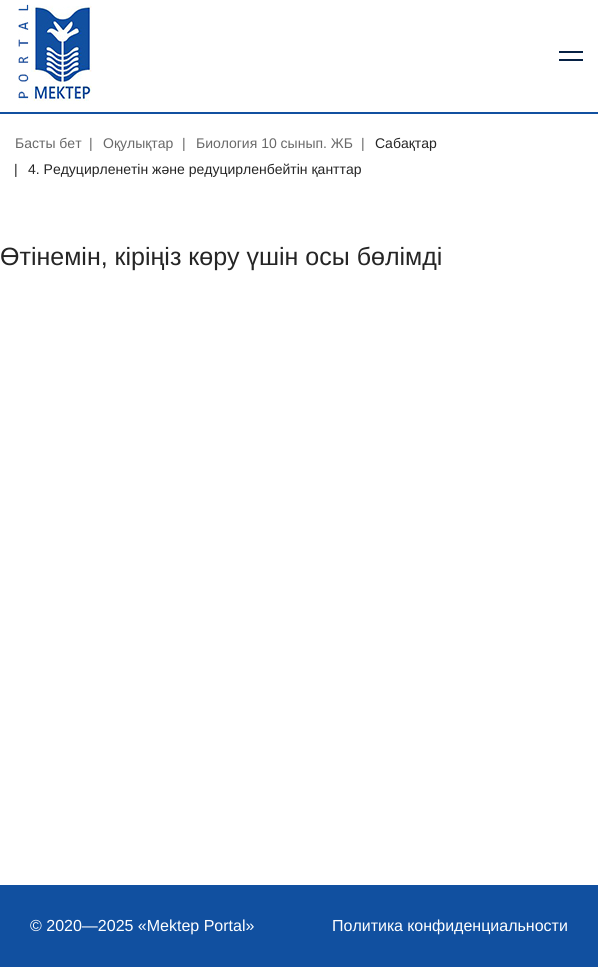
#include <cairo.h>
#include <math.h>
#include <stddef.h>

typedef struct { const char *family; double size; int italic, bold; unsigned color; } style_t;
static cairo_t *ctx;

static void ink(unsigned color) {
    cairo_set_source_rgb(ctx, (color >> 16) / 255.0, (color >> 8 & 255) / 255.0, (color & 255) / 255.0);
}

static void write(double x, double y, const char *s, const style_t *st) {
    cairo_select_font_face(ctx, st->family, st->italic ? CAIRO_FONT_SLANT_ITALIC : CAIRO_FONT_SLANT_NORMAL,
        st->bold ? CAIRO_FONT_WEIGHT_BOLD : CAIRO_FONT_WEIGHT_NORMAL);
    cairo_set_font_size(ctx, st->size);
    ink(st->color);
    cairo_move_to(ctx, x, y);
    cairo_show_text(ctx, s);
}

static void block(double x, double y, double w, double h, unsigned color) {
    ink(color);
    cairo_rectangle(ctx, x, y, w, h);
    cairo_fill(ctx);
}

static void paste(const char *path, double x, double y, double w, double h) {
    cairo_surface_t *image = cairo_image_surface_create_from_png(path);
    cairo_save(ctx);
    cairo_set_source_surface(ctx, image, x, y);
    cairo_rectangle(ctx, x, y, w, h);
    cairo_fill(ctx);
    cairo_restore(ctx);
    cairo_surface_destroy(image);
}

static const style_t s1 = {"Liberation Sans", 14, 0, 0, 0x696969};
static const style_t s2 = {"Liberation Sans", 14, 0, 0, 0x252525};
static const style_t s3 = {"Liberation Sans", 25, 0, 0, 0x252525};
static const style_t s4 = {"Liberation Sans", 16, 0, 0, 0xffffff};

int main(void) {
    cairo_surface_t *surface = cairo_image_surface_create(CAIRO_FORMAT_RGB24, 598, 967);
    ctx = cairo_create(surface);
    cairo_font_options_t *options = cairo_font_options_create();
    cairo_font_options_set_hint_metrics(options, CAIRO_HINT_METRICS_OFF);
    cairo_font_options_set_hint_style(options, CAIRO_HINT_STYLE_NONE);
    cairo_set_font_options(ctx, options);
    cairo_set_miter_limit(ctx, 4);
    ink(0xffffff);
    cairo_paint(ctx);
    block(0, 112, 598, 2, 0x1150a0);
    paste("pic1.png", 18, 4, 74, 100);
    block(559, 51, 24, 2, 0x062144);
    block(559, 59, 24, 2, 0x062144);
    write(15, 148, "Басты бет", &s1);
    write(89, 148, "|", &s1);
    write(103, 148, "Оқулықтар", &s1);
    write(182, 148, "|", &s1);
    write(196, 148, "Биология 10 сынып. ЖБ", &s1);
    write(361, 148, "|", &s1);
    write(375, 148, "Сабақтар", &s2);
    write(14, 174, "|", &s2);
    write(28, 174, "4. Редуцирленетін және редуцирленбейтін қанттар", &s2);
    write(0, 265, "Өтінемін, кіріңіз көру үшін осы бөлімді", &s3);
    block(0, 885, 598, 82, 0x1150a0);
    write(30, 931, "© 2020—2025 «Mektep Portal»", &s4);
    write(332, 931, "Политика конфиденциальности", &s4);
    cairo_surface_write_to_png(surface, "screenshot.png");
    cairo_font_options_destroy(options);
    cairo_destroy(ctx);
    cairo_surface_destroy(surface);
    return 0;
}
